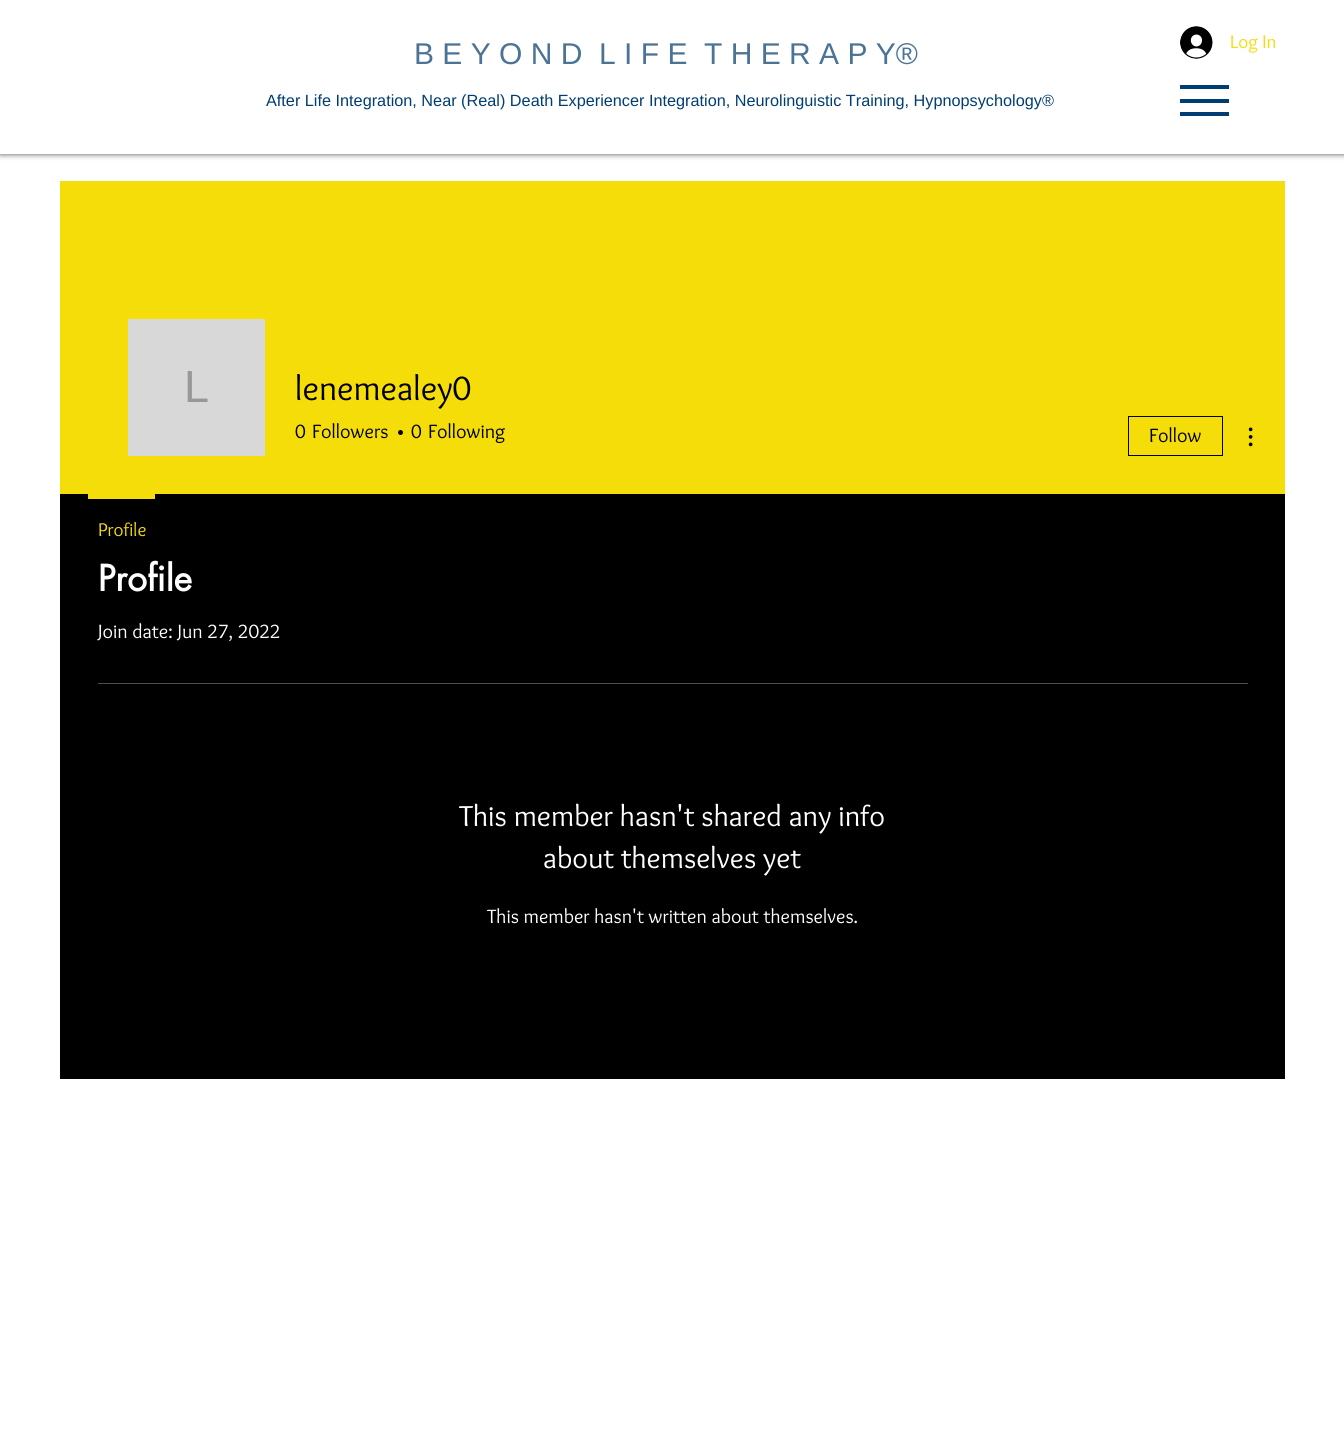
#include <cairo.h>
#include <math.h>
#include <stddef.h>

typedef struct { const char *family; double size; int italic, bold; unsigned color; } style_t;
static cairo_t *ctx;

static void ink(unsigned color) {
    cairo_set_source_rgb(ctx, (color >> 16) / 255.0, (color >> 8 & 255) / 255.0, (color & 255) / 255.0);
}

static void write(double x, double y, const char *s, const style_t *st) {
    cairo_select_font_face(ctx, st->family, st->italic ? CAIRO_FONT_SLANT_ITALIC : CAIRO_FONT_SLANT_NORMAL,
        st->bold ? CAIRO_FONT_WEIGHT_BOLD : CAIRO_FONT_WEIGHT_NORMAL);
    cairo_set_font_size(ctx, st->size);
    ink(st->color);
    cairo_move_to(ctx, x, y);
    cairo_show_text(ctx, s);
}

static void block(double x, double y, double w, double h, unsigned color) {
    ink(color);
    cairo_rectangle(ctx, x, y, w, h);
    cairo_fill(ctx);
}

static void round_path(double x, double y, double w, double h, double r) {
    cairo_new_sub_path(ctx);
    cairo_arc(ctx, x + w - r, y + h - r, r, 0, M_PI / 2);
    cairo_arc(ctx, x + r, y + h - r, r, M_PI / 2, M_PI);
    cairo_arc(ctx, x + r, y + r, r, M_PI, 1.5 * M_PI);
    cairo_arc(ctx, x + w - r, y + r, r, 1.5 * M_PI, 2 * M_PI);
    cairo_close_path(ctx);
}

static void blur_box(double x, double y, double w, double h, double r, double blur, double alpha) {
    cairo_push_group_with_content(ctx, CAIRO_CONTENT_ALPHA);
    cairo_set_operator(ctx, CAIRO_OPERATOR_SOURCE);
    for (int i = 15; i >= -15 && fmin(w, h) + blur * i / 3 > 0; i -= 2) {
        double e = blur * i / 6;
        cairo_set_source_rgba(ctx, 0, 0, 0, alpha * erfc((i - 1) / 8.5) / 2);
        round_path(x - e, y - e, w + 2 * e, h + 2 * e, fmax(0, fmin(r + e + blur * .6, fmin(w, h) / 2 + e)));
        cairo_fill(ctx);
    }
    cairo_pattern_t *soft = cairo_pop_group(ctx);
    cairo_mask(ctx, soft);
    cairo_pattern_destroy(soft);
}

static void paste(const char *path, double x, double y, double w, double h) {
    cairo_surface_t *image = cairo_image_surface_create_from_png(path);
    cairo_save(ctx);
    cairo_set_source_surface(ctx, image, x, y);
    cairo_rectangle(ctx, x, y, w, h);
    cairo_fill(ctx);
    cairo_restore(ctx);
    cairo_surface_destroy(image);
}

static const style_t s1 = {"Liberation Sans", 30, 0, 0, 0x4b7396};
static const style_t s2 = {"Overlock", 19, 0, 0, 0xf4dd09};
static const style_t s3 = {"Liberation Sans", 16.25, 0, 0, 0x003d73};
static const style_t s4 = {"Liberation Sans", 45, 0, 0, 0x979797};
static const style_t s5 = {"Overlock", 35, 0, 0, 0x000000};
static const style_t s6 = {"Overlock", 20, 0, 0, 0x000000};
static const style_t s7 = {"futura", 35, 0, 1, 0xffffff};
static const style_t s8 = {"Overlock", 20, 0, 0, 0xffffff};
static const style_t s9 = {"Overlock", 30, 0, 0, 0xffffff};

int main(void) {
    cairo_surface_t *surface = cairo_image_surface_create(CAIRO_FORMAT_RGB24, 1344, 1439);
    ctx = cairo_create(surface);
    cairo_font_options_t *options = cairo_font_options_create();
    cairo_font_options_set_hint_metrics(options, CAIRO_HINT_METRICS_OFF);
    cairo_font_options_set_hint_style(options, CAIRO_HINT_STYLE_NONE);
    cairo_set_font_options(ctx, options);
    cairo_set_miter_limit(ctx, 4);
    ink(0xffffff);
    cairo_paint(ctx);
    cairo_save(ctx);
    cairo_set_fill_rule(ctx, CAIRO_FILL_RULE_EVEN_ODD);
    cairo_new_path(ctx);
    cairo_move_to(ctx, 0, 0);
    cairo_line_to(ctx, 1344, 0);
    cairo_line_to(ctx, 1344, 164);
    cairo_line_to(ctx, 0, 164);
    cairo_close_path(ctx);
    cairo_move_to(ctx, 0, 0);
    cairo_line_to(ctx, 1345, 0);
    cairo_line_to(ctx, 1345, 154);
    cairo_line_to(ctx, 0, 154);
    cairo_close_path(ctx);
    cairo_clip(ctx);
    ink(0x000000);
    blur_box(0, 0, 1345, 154, 0, 3, 0.7);
    cairo_restore(ctx);
    cairo_set_source_rgba(ctx, 1, 1, 1, 0.6);
    cairo_rectangle(ctx, 0, 153, 1344, 1);
    cairo_fill(ctx);
    write(414, 64, "B E Y O N D  L I F E  T H E R A P Y®", &s1);
    paste("pic1.png", 1180, 26, 33, 33);
    write(1230, 48, "Log In", &s2);
    write(266, 106, "After Life Integration, Near (Real) Death Experiencer Integration, Neurolinguistic Training, Hypnopsychology®", &s3);
    block(1180, 112, 49, 4, 0x003d73);
    block(1180, 85, 49, 4, 0x003d73);
    block(1180, 99, 49, 4, 0x003d73);
    block(60, 181, 1225, 313, 0xf4dd09);
    block(128, 319, 137, 137, 0xd8d8d8);
    write(184, 402, "L", &s4);
    write(295, 400, "lenemealey0", &s5);
    write(295, 438, "0", &s6);
    write(312, 438, "Followers", &s6);
    cairo_new_path(ctx);
    cairo_arc(ctx, 400.5, 432.5, 2.5, 0, 2 * M_PI);
    cairo_fill(ctx);
    write(411, 438, "0", &s6);
    write(428, 438, "Following", &s6);
    cairo_rectangle(ctx, 1128.5, 416.5, 94, 39);
    cairo_set_line_width(ctx, 1);
    cairo_stroke(ctx);
    write(1149, 442, "Follow", &s6);
    paste("pic2.png", 1248, 427, 5, 20);
    block(60, 494, 1225, 585, 0x000000);
    block(88, 494, 67, 5, 0xf4dd09);
    write(98, 536, "Profile", &s2);
    write(98, 591, "Profile", &s7);
    write(98, 638, "Join date: Jun 27, 2022", &s8);
    block(98, 683, 1150, 1, 0x4d4d4d);
    write(459, 826, "This member hasn't shared any info", &s9);
    write(543, 868, "about themselves yet", &s9);
    write(487, 923, "This member hasn't written about themselves.", &s8);
    cairo_surface_write_to_png(surface, "screenshot.png");
    cairo_font_options_destroy(options);
    cairo_destroy(ctx);
    cairo_surface_destroy(surface);
    return 0;
}
